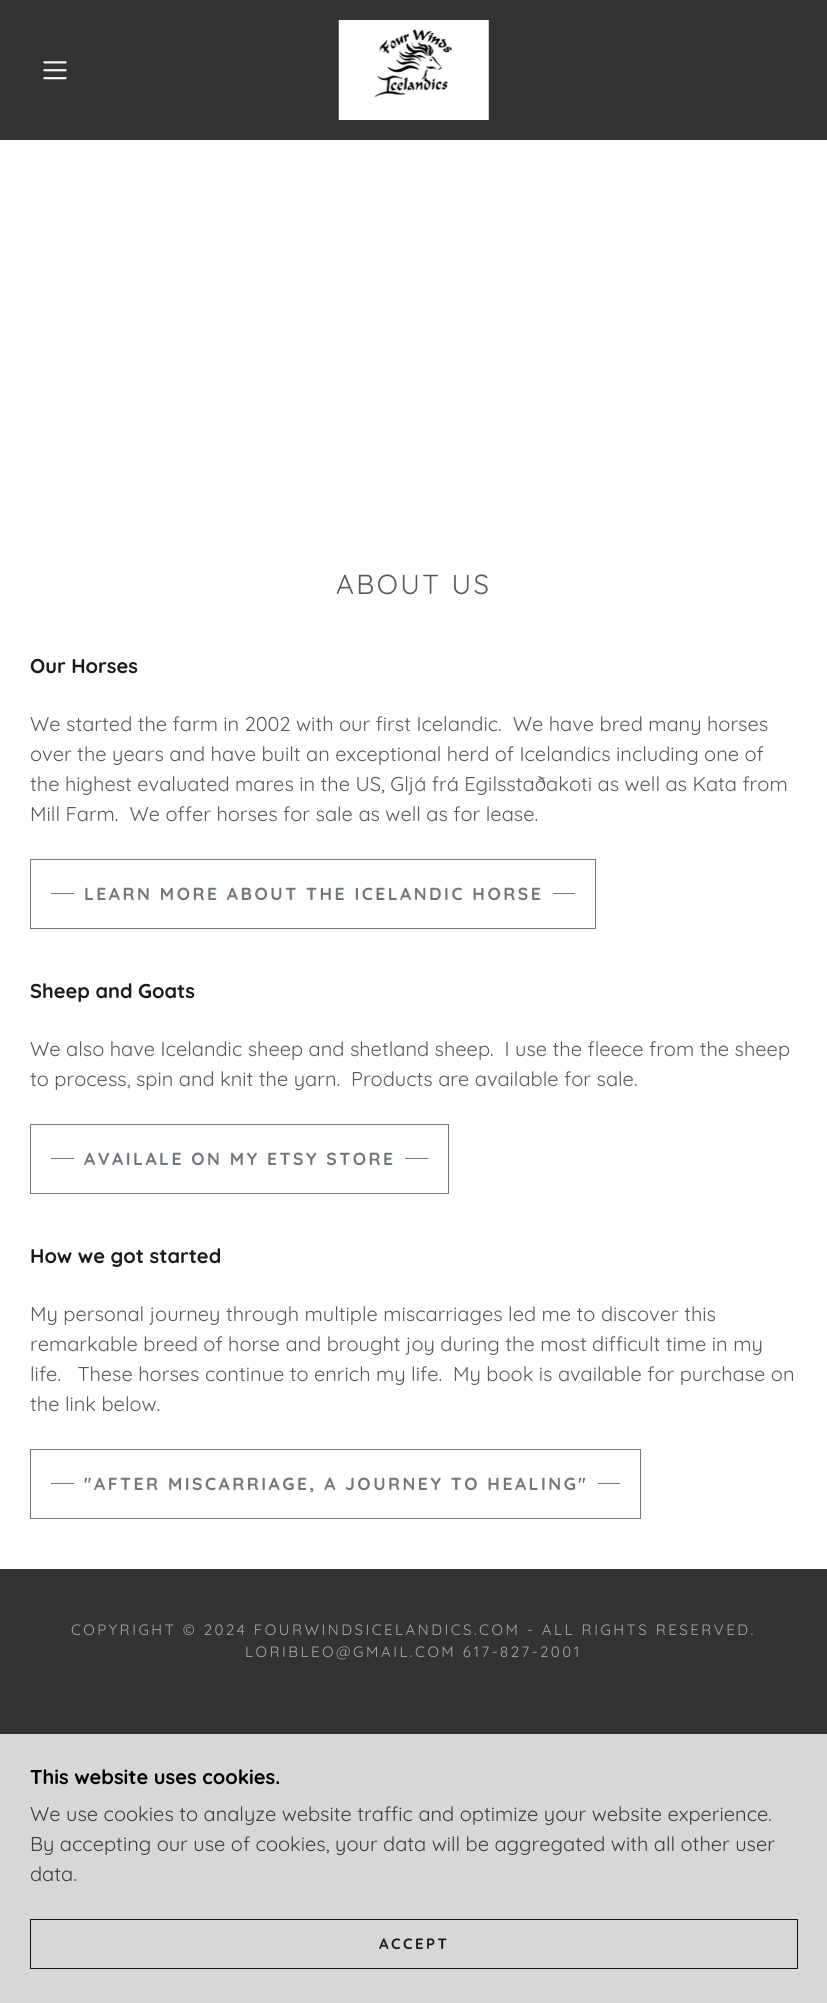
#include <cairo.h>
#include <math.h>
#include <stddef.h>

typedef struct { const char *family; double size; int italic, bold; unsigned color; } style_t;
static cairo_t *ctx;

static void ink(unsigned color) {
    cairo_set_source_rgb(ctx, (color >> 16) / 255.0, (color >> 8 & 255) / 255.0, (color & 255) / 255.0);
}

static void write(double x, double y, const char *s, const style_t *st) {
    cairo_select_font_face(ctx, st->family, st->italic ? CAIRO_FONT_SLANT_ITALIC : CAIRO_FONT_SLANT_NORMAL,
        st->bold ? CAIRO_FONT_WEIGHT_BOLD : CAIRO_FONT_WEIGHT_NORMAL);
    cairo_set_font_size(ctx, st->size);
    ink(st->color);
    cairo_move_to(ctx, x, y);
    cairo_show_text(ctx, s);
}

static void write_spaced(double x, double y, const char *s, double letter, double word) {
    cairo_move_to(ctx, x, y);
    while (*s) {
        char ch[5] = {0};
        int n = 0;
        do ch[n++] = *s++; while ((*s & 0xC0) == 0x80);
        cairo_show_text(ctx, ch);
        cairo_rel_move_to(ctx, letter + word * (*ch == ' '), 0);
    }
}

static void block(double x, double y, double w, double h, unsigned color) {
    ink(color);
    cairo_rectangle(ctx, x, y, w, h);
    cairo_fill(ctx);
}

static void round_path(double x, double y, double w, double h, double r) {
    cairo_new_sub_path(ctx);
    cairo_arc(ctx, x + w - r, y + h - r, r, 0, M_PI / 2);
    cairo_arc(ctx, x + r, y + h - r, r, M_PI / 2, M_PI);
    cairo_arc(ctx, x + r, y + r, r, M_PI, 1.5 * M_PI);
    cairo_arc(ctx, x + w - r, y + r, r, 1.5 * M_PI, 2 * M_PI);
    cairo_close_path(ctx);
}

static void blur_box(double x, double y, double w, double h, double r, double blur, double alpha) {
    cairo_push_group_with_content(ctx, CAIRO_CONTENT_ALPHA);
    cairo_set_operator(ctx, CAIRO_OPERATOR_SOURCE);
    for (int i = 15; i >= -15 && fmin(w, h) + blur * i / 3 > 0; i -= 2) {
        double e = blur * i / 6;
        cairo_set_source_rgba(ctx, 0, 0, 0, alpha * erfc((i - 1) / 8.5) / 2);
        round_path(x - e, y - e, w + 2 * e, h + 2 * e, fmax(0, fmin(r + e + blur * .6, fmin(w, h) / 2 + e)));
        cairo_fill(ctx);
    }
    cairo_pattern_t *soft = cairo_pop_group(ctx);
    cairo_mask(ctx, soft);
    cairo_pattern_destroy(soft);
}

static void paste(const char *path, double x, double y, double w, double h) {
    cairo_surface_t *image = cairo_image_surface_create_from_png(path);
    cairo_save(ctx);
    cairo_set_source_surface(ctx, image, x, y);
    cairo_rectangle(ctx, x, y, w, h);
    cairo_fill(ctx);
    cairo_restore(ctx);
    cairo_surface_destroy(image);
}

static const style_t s1 = {"Quicksand", 20, 0, 1, 0x1b1b1b};
static const style_t s2 = {"Quicksand", 20, 0, 0, 0x595959};
static const style_t s3 = {"Quicksand", 20, 0, 1, 0x000000};
static const style_t s4 = {"Quicksand", 20, 0, 0, 0x3d3d3e};

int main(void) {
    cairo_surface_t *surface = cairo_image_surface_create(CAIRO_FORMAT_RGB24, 827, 2003);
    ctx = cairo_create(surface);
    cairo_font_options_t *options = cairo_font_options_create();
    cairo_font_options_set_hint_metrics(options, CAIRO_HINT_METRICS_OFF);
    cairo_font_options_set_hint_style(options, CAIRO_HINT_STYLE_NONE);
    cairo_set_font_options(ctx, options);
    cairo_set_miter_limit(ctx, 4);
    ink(0x333333);
    cairo_paint(ctx);
    paste("pic1.png", 43, 61, 24, 19);
    paste("pic2.png", 338, 20, 151, 100);
    block(0, 140, 827, 1429, 0xffffff);
    cairo_select_font_face(ctx, "Quicksand", CAIRO_FONT_SLANT_NORMAL, CAIRO_FONT_WEIGHT_NORMAL);
    cairo_set_font_size(ctx, 27.5);
    ink(0x595959);
    write_spaced(336, 594, "ABOUT US", 2.5, 0);
    write(30, 673, "Our Horses", &s1);
    write(30, 731, "We started the farm in 2002 with our first Icelandic.  We have bred many horses", &s2);
    write(30, 761, "over the years and have built an exceptional herd of Icelandics including one of", &s2);
    write(30, 791, "the highest evaluated mares in the US, Gljá frá Egilsstaðakoti as well as Kata from", &s2);
    write(30, 821, "Mill Farm.  We offer horses for sale as well as for lease.", &s2);
    cairo_rectangle(ctx, 30.5, 859.5, 565, 69);
    ink(0x6f777f);
    cairo_set_line_width(ctx, 1);
    cairo_stroke(ctx);
    block(51, 893, 23, 1, 0x6f777f);
    cairo_select_font_face(ctx, "Quicksand", CAIRO_FONT_SLANT_NORMAL, CAIRO_FONT_WEIGHT_BOLD);
    cairo_set_font_size(ctx, 17.5);
    write_spaced(84, 900, "LEARN MORE ABOUT THE ICELANDIC HORSE", 2.5, 0);
    block(553, 893, 22, 1, 0x6f777f);
    write(30, 998, "Sheep and Goats", &s1);
    write(30, 1056, "We also have Icelandic sheep and shetland sheep.  I use the fleece from the sheep", &s2);
    write(30, 1086, "to process, spin and knit the yarn.  Products are available for sale.", &s2);
    cairo_rectangle(ctx, 30.5, 1124.5, 418, 69);
    ink(0x6f777f);
    cairo_stroke(ctx);
    block(51, 1158, 23, 1, 0x6f777f);
    cairo_select_font_face(ctx, "Quicksand", CAIRO_FONT_SLANT_NORMAL, CAIRO_FONT_WEIGHT_BOLD);
    cairo_set_font_size(ctx, 17.5);
    write_spaced(84, 1165, "AVAILALE ON MY ETSY STORE", 2.5, 0);
    block(405, 1158, 23, 1, 0x6f777f);
    write(30, 1263, "How we got started", &s1);
    write(30, 1321, "My personal journey through multiple miscarriages led me to discover this", &s2);
    write(30, 1351, "remarkable breed of horse and brought joy during the most difficult time in my", &s2);
    write(30, 1381, "life.   These horses continue to enrich my life.  My book is available for purchase on", &s2);
    write(30, 1411, "the link below.", &s2);
    cairo_rectangle(ctx, 30.5, 1449.5, 610, 69);
    ink(0x6f777f);
    cairo_stroke(ctx);
    block(51, 1483, 23, 1, 0x6f777f);
    cairo_select_font_face(ctx, "Quicksand", CAIRO_FONT_SLANT_NORMAL, CAIRO_FONT_WEIGHT_BOLD);
    cairo_set_font_size(ctx, 17.5);
    write_spaced(84, 1490, "\"AFTER MISCARRIAGE, A JOURNEY TO HEALING\"", 2.5, 0);
    block(598, 1483, 22, 1, 0x6f777f);
    cairo_select_font_face(ctx, "Quicksand", CAIRO_FONT_SLANT_NORMAL, CAIRO_FONT_WEIGHT_NORMAL);
    cairo_set_font_size(ctx, 15);
    ink(0xa9a9a9);
    write_spaced(71, 1635, "COPYRIGHT © 2024 FOURWINDSICELANDICS.COM - ALL RIGHTS RESERVED.", 2.5, 0);
    write_spaced(245, 1657, "LORIBLEO@GMAIL.COM 617-827-2001", 2.5, 0);
    ink(0x000000);
    blur_box(0, 1736, 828, 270, 0, 4, 0.3);
    block(0, 1734, 827, 269, 0xd6d7d8);
    write(30, 1784, "This website uses cookies.", &s3);
    write(30, 1821, "We use cookies to analyze website traffic and optimize your website experience.", &s4);
    write(30, 1851, "By accepting our use of cookies, your data will be aggregated with all other user", &s4);
    write(30, 1881, "data.", &s4);
    cairo_rectangle(ctx, 30.5, 1919.5, 767, 49);
    ink(0x161616);
    cairo_stroke(ctx);
    cairo_select_font_face(ctx, "Quicksand", CAIRO_FONT_SLANT_NORMAL, CAIRO_FONT_WEIGHT_BOLD);
    cairo_set_font_size(ctx, 15);
    ink(0x1b1b1b);
    write_spaced(379, 1949, "ACCEPT", 2.5, 0);
    cairo_surface_write_to_png(surface, "screenshot.png");
    cairo_font_options_destroy(options);
    cairo_destroy(ctx);
    cairo_surface_destroy(surface);
    return 0;
}
